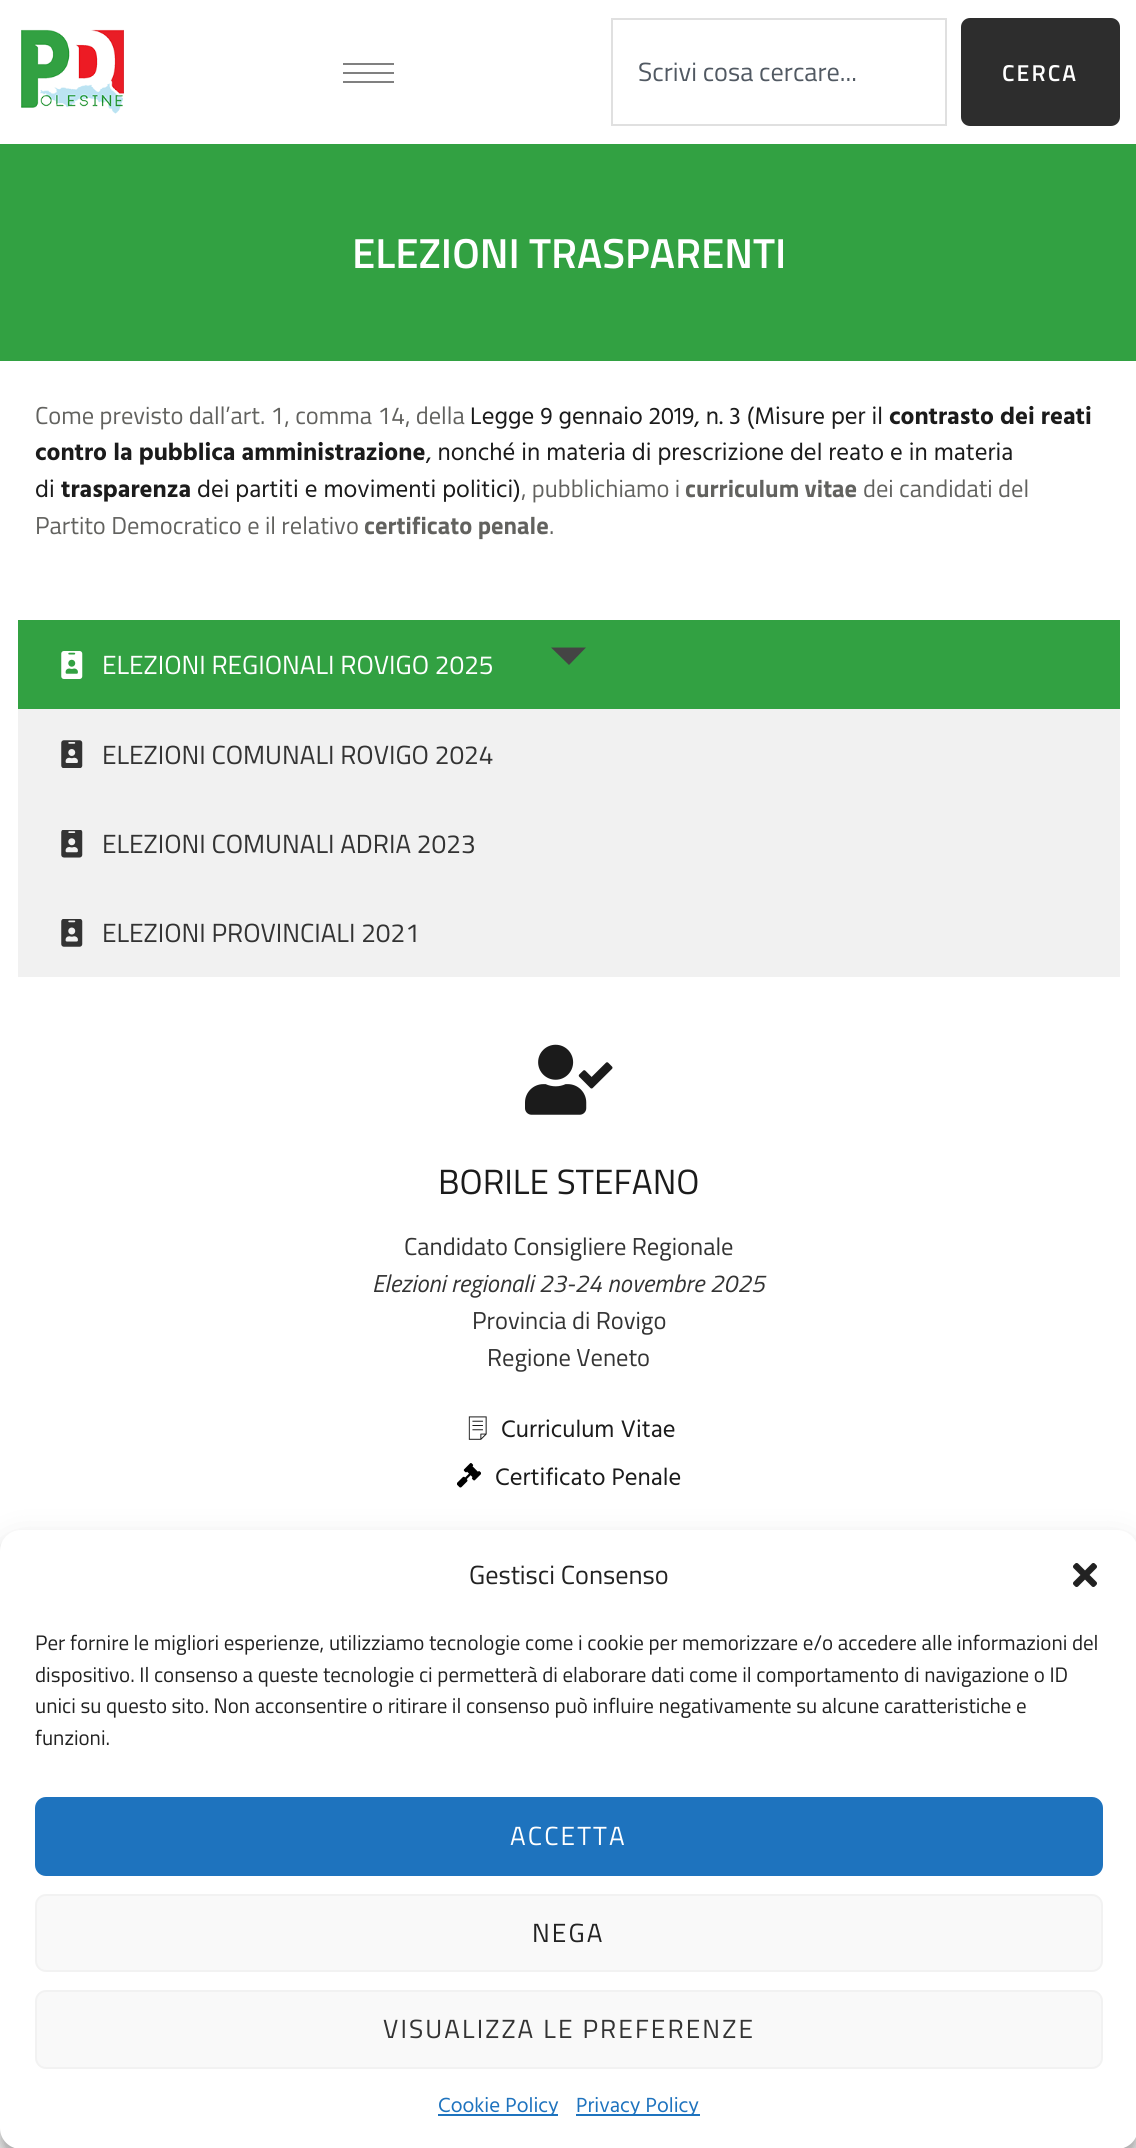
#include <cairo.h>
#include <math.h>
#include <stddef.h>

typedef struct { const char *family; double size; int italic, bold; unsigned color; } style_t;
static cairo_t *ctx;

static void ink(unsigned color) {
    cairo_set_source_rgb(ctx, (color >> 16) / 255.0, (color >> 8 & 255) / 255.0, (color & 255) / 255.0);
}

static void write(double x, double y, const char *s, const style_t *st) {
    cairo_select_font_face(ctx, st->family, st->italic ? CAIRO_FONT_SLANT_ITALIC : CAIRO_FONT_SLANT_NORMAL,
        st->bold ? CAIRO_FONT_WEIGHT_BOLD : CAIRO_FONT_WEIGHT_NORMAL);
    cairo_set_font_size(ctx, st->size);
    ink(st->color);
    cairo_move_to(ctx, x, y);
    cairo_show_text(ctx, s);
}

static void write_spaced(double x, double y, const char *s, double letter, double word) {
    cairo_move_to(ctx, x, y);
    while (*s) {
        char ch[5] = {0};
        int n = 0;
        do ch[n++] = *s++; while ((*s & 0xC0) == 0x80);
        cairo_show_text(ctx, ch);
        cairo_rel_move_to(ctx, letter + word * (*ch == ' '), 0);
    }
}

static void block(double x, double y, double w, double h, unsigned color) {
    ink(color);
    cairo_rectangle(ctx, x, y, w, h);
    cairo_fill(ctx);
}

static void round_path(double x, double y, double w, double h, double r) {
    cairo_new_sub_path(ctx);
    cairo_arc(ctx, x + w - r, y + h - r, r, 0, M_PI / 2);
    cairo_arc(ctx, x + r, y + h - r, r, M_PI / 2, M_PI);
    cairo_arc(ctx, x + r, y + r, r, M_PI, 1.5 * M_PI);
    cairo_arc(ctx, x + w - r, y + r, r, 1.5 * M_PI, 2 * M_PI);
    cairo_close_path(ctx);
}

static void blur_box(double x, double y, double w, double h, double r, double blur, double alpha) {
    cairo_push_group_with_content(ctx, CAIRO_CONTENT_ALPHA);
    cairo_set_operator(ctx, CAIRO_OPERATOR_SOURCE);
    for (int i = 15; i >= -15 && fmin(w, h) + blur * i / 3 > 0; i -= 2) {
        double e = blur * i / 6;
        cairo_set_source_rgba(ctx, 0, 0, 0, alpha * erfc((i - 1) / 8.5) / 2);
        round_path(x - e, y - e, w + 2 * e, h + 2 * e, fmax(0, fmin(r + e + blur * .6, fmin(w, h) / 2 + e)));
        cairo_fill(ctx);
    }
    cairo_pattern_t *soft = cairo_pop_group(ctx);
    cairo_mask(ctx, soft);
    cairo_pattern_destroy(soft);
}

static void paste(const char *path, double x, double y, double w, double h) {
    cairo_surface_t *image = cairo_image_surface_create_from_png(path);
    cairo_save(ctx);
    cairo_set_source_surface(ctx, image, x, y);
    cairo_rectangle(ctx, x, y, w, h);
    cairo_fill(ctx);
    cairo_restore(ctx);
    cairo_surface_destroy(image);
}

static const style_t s1 = {"Titillium Web", 26.25, 0, 0, 0x515962};
static const style_t s2 = {"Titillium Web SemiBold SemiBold", 42, 0, 0, 0xffffff};
static const style_t s3 = {"Titillium Web", 24.5, 0, 0, 0x62625f};
static const style_t s4 = {"Hind Vadodara", 24.5, 0, 0, 0x1b1b1b};
static const style_t s5 = {"Hind Vadodara", 24.5, 0, 1, 0x1b1b1b};
static const style_t s6 = {"Titillium Web", 24.5, 0, 1, 0x62625f};
static const style_t s7 = {"Titillium Web", 26.25, 0, 0, 0xffffff};
static const style_t s8 = {"Titillium Web", 26.25, 0, 0, 0x333333};
static const style_t s9 = {"Titillium Web", 35, 0, 0, 0x1b1b1b};
static const style_t s10 = {"Titillium Web", 24.5, 0, 0, 0x333333};
static const style_t s11 = {"Titillium Web", 24.5, 1, 0, 0x333333};
static const style_t s12 = {"Titillium Web", 26.25, 0, 0, 0x222222};
static const style_t s13 = {"Titillium Web", 21, 0, 0, 0x222222};
static const style_t s14 = {"Hind Vadodara", 21, 0, 0, 0x1e73be};

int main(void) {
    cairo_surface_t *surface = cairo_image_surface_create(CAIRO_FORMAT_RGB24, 1136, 2148);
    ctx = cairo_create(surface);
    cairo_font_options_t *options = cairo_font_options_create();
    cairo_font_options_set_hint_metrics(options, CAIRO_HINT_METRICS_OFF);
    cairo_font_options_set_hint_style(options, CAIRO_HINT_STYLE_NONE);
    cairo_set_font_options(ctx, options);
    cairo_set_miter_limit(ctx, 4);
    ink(0xffffff);
    cairo_paint(ctx);
    paste("pic1.png", 21, 29, 103, 85);
    block(343, 63, 51, 2, 0x808080);
    block(343, 72, 51, 2, 0x808080);
    block(343, 81, 51, 2, 0x808080);
    cairo_rectangle(ctx, 612, 19, 334, 106);
    ink(0xe0e0e0);
    cairo_stroke(ctx);
    write(638, 81, "Scrivi cosa cercare...", &s1);
    ink(0x2d2d2d);
    round_path(961, 18, 159, 108, 9);
    cairo_fill(ctx);
    cairo_select_font_face(ctx, "Titillium Web SemiBold SemiBold", CAIRO_FONT_SLANT_NORMAL, CAIRO_FONT_WEIGHT_NORMAL);
    cairo_set_font_size(ctx, 23);
    ink(0xffffff);
    write_spaced(1002, 81, "CERCA", 2.1, 0);
    block(0, 144, 1136, 217, 0x32a142);
    write(352, 268, "ELEZIONI TRASPARENTI", &s2);
    write(35, 424, "Come previsto dall’art. 1, comma 14, della", &s3);
    write(470, 424, "Legge 9 gennaio 2019, n. 3 (Misure per il", &s4);
    write(889, 424, "contrasto dei reati", &s5);
    write(35, 460, "contro la pubblica amministrazione", &s5);
    write(426, 460, ", nonché in materia di prescrizione del reato e in materia", &s4);
    write(35, 497, "di", &s4);
    write(61, 497, "trasparenza", &s5);
    write(197, 497, "dei partiti e movimenti politici)", &s4);
    write(521, 497, ", pubblichiamo i", &s3);
    write(685, 497, "curriculum vitae", &s6);
    write(863, 497, "dei candidati del", &s3);
    write(35, 534, "Partito Democratico e il relativo", &s3);
    write(364, 534, "certificato penale", &s6);
    write(549, 534, ".", &s3);
    block(18, 620, 1102, 89, 0x32a142);
    paste("pic2.png", 61, 651, 22, 28);
    write(102, 674, "ELEZIONI REGIONALI ROVIGO 2025", &s7);
    ink(0x444444);
    cairo_new_path(ctx);
    cairo_move_to(ctx, 551, 647.5);
    cairo_line_to(ctx, 586, 647.5);
    cairo_line_to(ctx, 569, 665);
    cairo_close_path(ctx);
    cairo_fill(ctx);
    block(18, 709, 1102, 268, 0xf1f1f1);
    paste("pic3.png", 61, 740, 22, 28);
    write(102, 764, "ELEZIONI COMUNALI ROVIGO 2024", &s8);
    paste("pic4.png", 61, 830, 22, 28);
    write(102, 853, "ELEZIONI COMUNALI ADRIA 2023", &s8);
    paste("pic5.png", 61, 919, 22, 28);
    write(102, 942, "ELEZIONI PROVINCIALI 2021", &s8);
    paste("pic6.png", 525, 1044, 88, 71);
    write(438, 1194, "BORILE STEFANO", &s9);
    write(404, 1255, "Candidato Consigliere Regionale", &s10);
    write(372, 1292, "Elezioni regionali 23-24 novembre 2025", &s11);
    write(472, 1329, "Provincia di Rovigo", &s10);
    write(487, 1366, "Regione Veneto", &s10);
    paste("pic7.png", 468, 1416, 19, 24);
    write(501, 1437, "Curriculum Vitae", &s4);
    paste("pic8.png", 457, 1463, 24, 25);
    write(495, 1485, "Certificato Penale", &s4);
    ink(0x000000);
    blur_box(0, 1540, 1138, 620, 21, 5, 0.23);
    blur_box(0, 1547, 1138, 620, 21, 17.5, 0.19);
    ink(0xffffff);
    round_path(0, 1530, 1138, 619, 21);
    cairo_fill(ctx);
    write(469, 1584, "Gestisci Consenso", &s12);
    paste("pic9.png", 1073, 1563, 24, 24);
    write(35, 1650, "Per fornire le migliori esperienze, utilizziamo tecnologie come i cookie per memorizzare e/o accedere alle informazioni del", &s13);
    write(35, 1682, "dispositivo. Il consenso a queste tecnologie ci permetterà di elaborare dati come il comportamento di navigazione o ID", &s13);
    write(35, 1713, "unici su questo sito. Non acconsentire o ritirare il consenso può influire negativamente su alcune caratteristiche e", &s13);
    write(35, 1745, "funzioni.", &s13);
    ink(0x1e73be);
    round_path(36, 1798, 1066, 77, 10);
    cairo_fill_preserve(ctx);
    cairo_stroke(ctx);
    cairo_set_font_size(ctx, 26.25);
    ink(0xffffff);
    write_spaced(510, 1845, "ACCETTA", 2.1, 0);
    ink(0xf9f9f9);
    round_path(36, 1895, 1066, 76, 10);
    cairo_fill_preserve(ctx);
    ink(0xf2f2f2);
    cairo_stroke(ctx);
    ink(0x222222);
    write_spaced(532, 1942, "NEGA", 2.1, 0);
    ink(0xf9f9f9);
    round_path(36, 1991, 1066, 77, 10);
    cairo_fill_preserve(ctx);
    ink(0xf2f2f2);
    cairo_stroke(ctx);
    ink(0x333333);
    write_spaced(383, 2038, "VISUALIZZA LE PREFERENZE", 2.1, 0);
    block(438, 2114, 120, 2, 0x1e73be);
    write(438, 2112, "Cookie Policy", &s14);
    block(576, 2114, 124, 2, 0x1e73be);
    write(576, 2112, "Privacy Policy", &s14);
    cairo_surface_write_to_png(surface, "screenshot.png");
    cairo_font_options_destroy(options);
    cairo_destroy(ctx);
    cairo_surface_destroy(surface);
    return 0;
}
